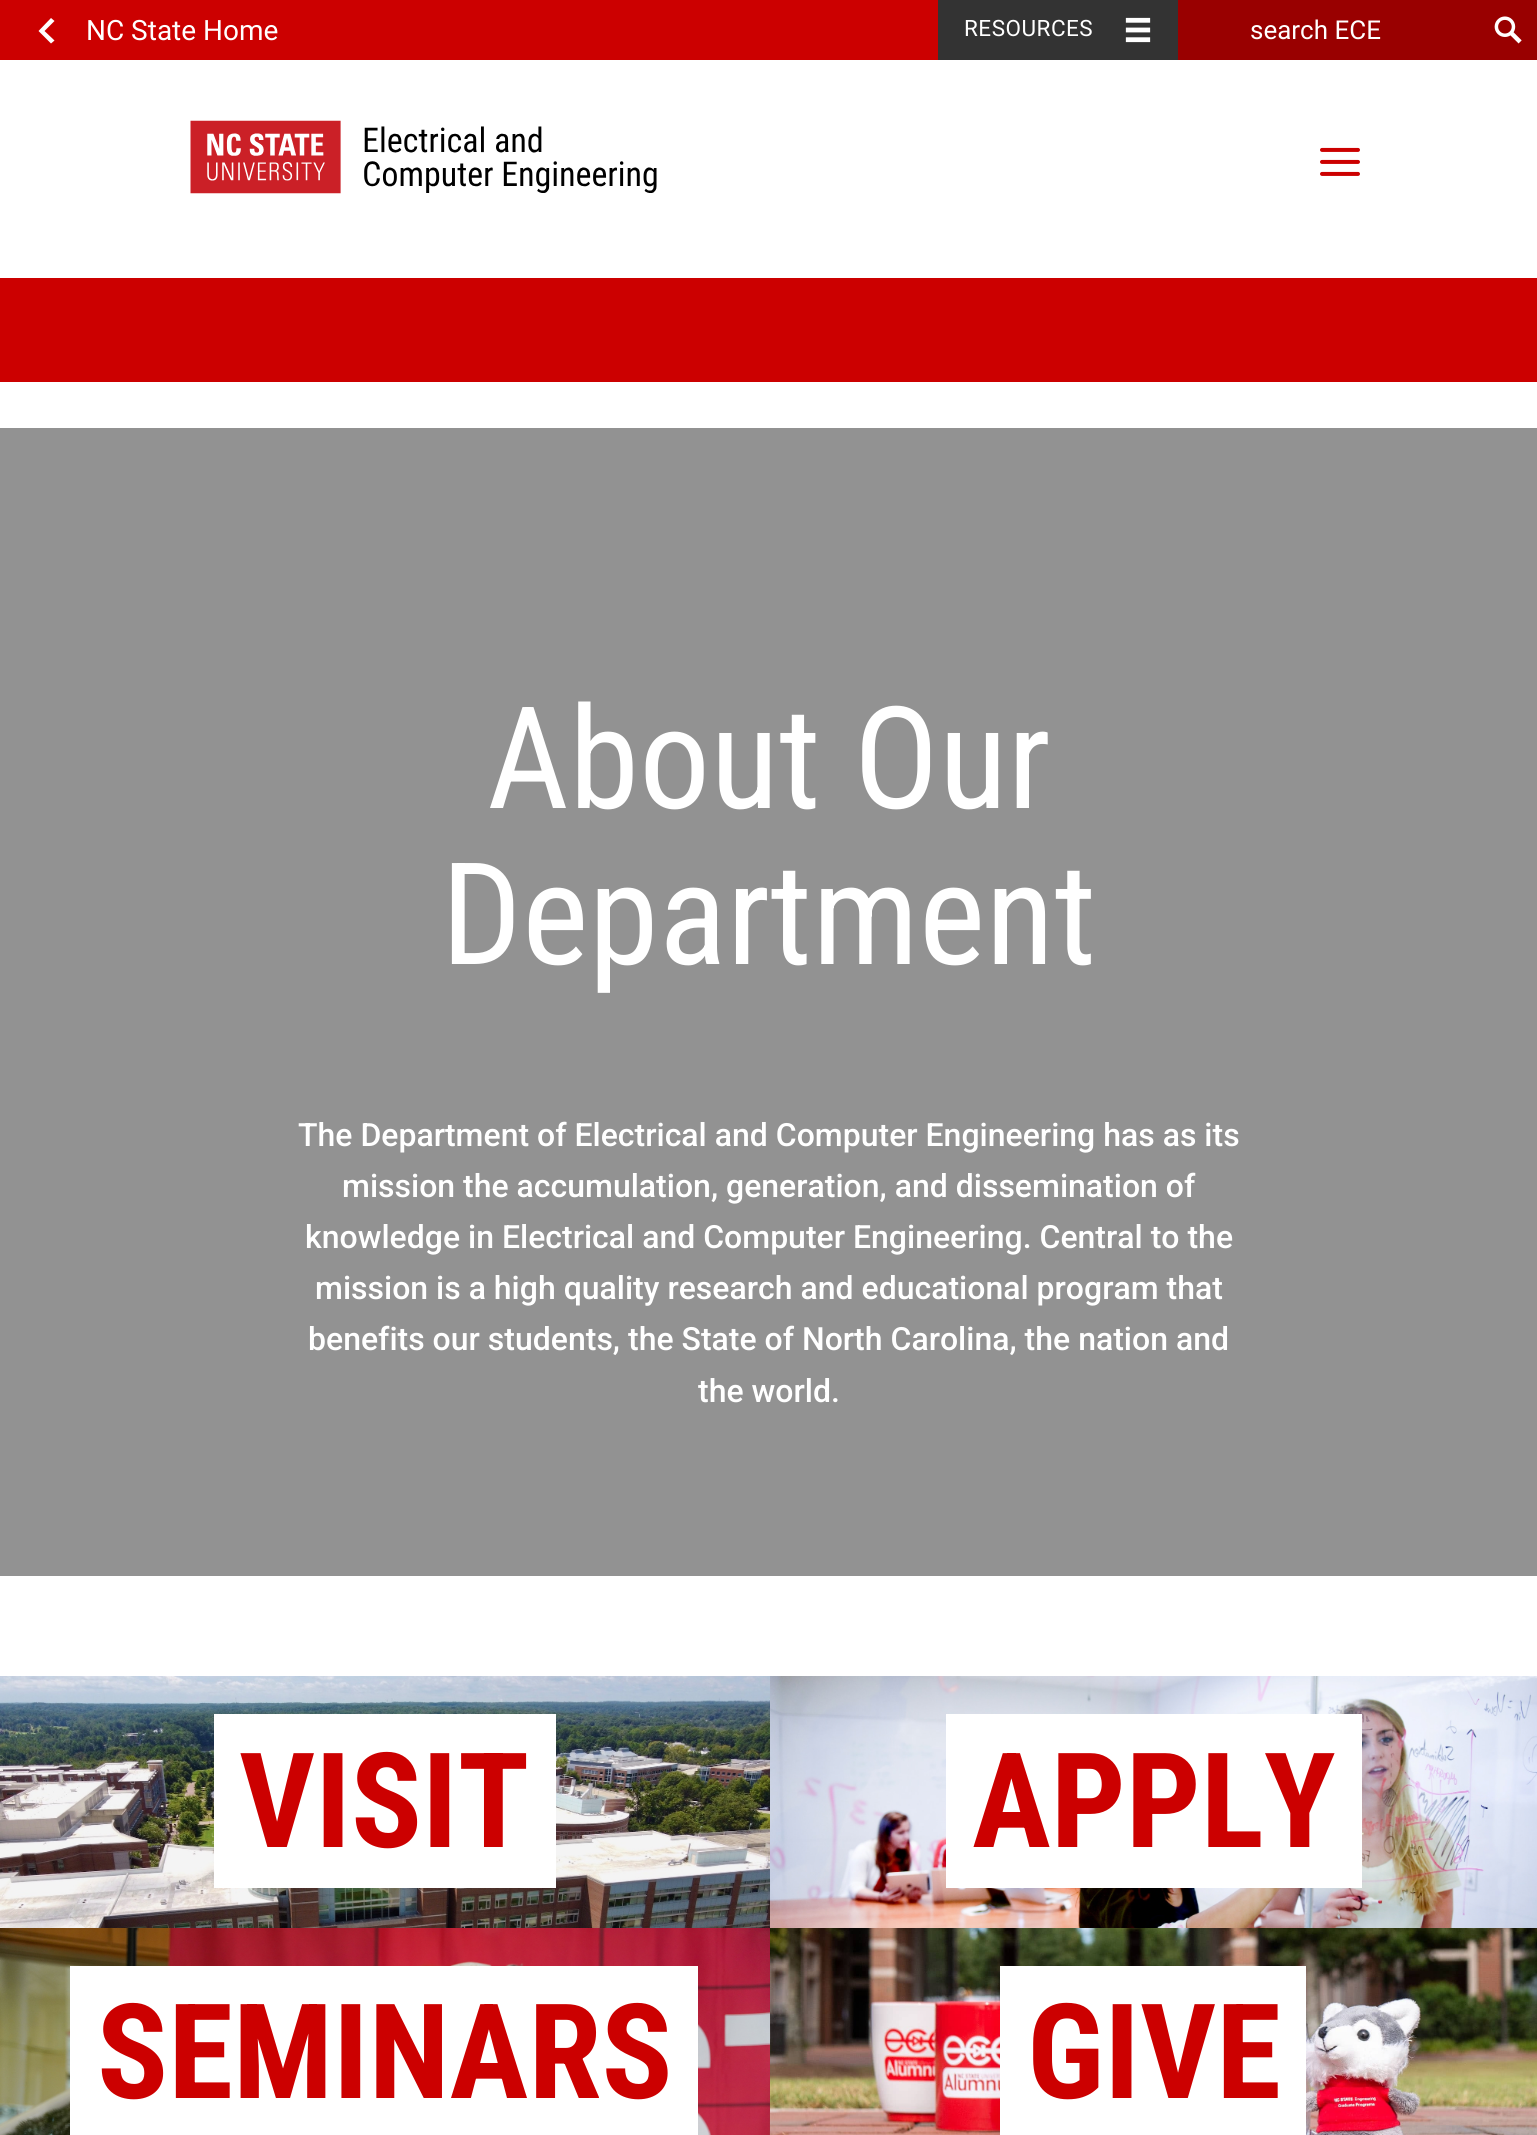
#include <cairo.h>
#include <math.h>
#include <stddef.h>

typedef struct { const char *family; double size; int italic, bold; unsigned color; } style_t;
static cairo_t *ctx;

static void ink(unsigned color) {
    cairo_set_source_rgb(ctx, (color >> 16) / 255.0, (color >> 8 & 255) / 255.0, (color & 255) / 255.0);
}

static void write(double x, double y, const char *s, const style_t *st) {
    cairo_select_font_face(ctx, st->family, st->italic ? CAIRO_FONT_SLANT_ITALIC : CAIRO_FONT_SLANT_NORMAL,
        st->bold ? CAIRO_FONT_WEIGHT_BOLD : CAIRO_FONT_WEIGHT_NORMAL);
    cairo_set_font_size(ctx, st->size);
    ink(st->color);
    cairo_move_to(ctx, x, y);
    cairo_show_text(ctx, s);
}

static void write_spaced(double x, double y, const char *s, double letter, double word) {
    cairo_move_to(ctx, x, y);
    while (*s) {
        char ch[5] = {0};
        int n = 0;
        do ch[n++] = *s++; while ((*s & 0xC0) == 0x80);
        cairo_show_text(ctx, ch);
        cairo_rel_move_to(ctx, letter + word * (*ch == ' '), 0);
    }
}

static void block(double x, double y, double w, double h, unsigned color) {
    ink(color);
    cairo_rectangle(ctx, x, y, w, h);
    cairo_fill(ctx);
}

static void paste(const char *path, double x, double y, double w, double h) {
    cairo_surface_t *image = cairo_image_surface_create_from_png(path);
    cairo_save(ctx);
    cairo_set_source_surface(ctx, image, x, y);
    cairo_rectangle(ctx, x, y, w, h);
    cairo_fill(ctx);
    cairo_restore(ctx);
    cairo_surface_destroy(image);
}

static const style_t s1 = {"Roboto", 28, 0, 0, 0xffffff};
static const style_t s2 = {"Roboto", 26, 0, 0, 0xffffff};
static const style_t s3 = {"Roboto Condensed", 142, 0, 0, 0xffffff};
static const style_t s4 = {"Roboto Medium", 32, 0, 0, 0xffffff};
static const style_t s5 = {"Roboto Condensed", 132, 0, 1, 0xcc0000};

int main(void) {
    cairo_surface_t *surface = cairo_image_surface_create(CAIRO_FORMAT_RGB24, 1537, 2135);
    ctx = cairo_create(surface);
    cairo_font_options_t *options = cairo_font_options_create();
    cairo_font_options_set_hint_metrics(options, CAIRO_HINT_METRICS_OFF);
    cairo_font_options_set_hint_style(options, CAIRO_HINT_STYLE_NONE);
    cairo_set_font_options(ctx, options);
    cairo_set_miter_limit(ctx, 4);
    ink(0xffffff);
    cairo_paint(ctx);
    block(0, 0, 938, 60, 0xcc0000);
    ink(0xffffff);
    cairo_new_path(ctx);
    cairo_move_to(ctx, 41.5, 34);
    cairo_line_to(ctx, 51, 43.5);
    cairo_line_to(ctx, 54.5, 40.5);
    cairo_line_to(ctx, 44.5, 31);
    cairo_line_to(ctx, 54.5, 21);
    cairo_line_to(ctx, 51, 18);
    cairo_line_to(ctx, 38.5, 31);
    cairo_close_path(ctx);
    cairo_fill(ctx);
    write(86, 40, "NC State Home", &s1);
    block(938, 0, 240, 60, 0x333333);
    paste("pic1.png", 1125, 17, 26, 26);
    cairo_set_font_size(ctx, 22.5);
    ink(0xffffff);
    write_spaced(964, 36, "RESOURCES", 0.5, 0);
    block(1178, 0, 359, 60, 0x990000);
    write(1250, 39, "search ECE", &s2);
    paste("pic2.png", 1494, 16, 28, 28);
    paste("pic3.png", 190, 120, 467, 74);
    paste("pic4.png", 1320, 147, 40, 29);
    block(0, 278, 1537, 104, 0xcc0000);
    block(0, 428, 1537, 1148, 0x929292);
    write(487, 808, "About Our", &s3);
    write(441, 964, "Department", &s3);
    write(298, 1146, "The Department of Electrical and Computer Engineering has as its", &s4);
    write(342, 1197, "mission the accumulation, generation, and dissemination of", &s4);
    write(305, 1248, "knowledge in Electrical and Computer Engineering. Central to the", &s4);
    write(315, 1299, "mission is a high quality research and educational program that", &s4);
    write(308, 1350, "benefits our students, the State of North Carolina, the nation and", &s4);
    write(698, 1402, "the world.", &s4);
    paste("pic5.png", 0, 1676, 770, 252);
    block(214, 1714, 342, 174, 0xffffff);
    write(239, 1847, "VISIT", &s5);
    paste("pic6.png", 770, 1676, 767, 252);
    block(946, 1714, 416, 174, 0xffffff);
    write(972, 1847, "APPLY", &s5);
    paste("pic7.png", 0, 1928, 770, 207);
    block(70, 1966, 628, 169, 0xffffff);
    write(97, 2098, "SEMINARS", &s5);
    paste("pic8.png", 770, 1928, 767, 207);
    block(1000, 1966, 306, 169, 0xffffff);
    write(1027, 2098, "GIVE", &s5);
    cairo_surface_write_to_png(surface, "screenshot.png");
    cairo_font_options_destroy(options);
    cairo_destroy(ctx);
    cairo_surface_destroy(surface);
    return 0;
}
